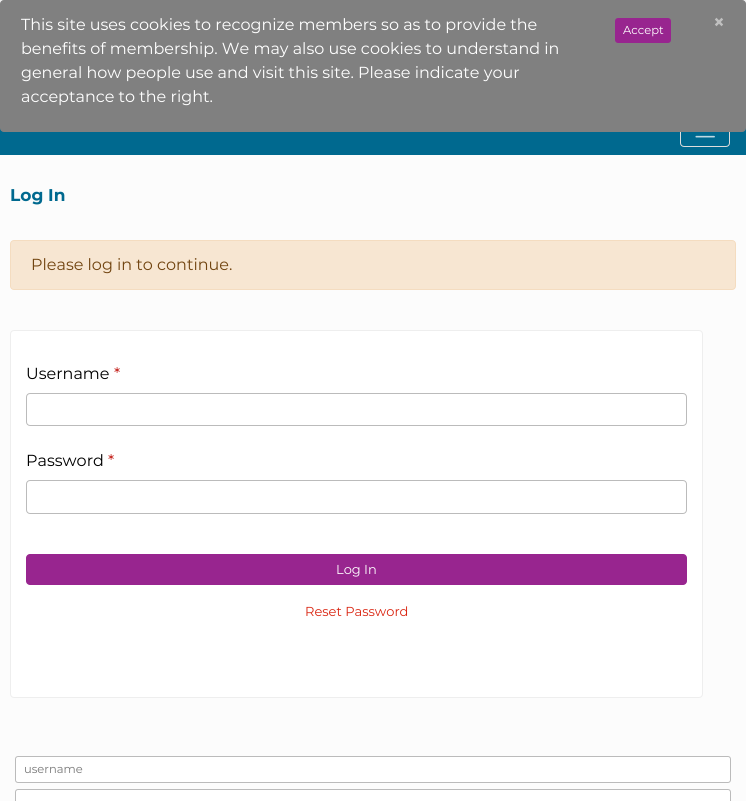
#include <cairo.h>
#include <math.h>
#include <stddef.h>

typedef struct { const char *family; double size; int italic, bold; unsigned color; } style_t;
static cairo_t *ctx;

static void ink(unsigned color) {
    cairo_set_source_rgb(ctx, (color >> 16) / 255.0, (color >> 8 & 255) / 255.0, (color & 255) / 255.0);
}

static void write(double x, double y, const char *s, const style_t *st) {
    cairo_select_font_face(ctx, st->family, st->italic ? CAIRO_FONT_SLANT_ITALIC : CAIRO_FONT_SLANT_NORMAL,
        st->bold ? CAIRO_FONT_WEIGHT_BOLD : CAIRO_FONT_WEIGHT_NORMAL);
    cairo_set_font_size(ctx, st->size);
    ink(st->color);
    cairo_move_to(ctx, x, y);
    cairo_show_text(ctx, s);
}

static void block(double x, double y, double w, double h, unsigned color) {
    ink(color);
    cairo_rectangle(ctx, x, y, w, h);
    cairo_fill(ctx);
}

static void round_path(double x, double y, double w, double h, double r) {
    cairo_new_sub_path(ctx);
    cairo_arc(ctx, x + w - r, y + h - r, r, 0, M_PI / 2);
    cairo_arc(ctx, x + r, y + h - r, r, M_PI / 2, M_PI);
    cairo_arc(ctx, x + r, y + r, r, M_PI, 1.5 * M_PI);
    cairo_arc(ctx, x + w - r, y + r, r, 1.5 * M_PI, 2 * M_PI);
    cairo_close_path(ctx);
}

static void paste(const char *path, double x, double y, double w, double h) {
    cairo_surface_t *image = cairo_image_surface_create_from_png(path);
    cairo_save(ctx);
    cairo_set_source_surface(ctx, image, x, y);
    cairo_rectangle(ctx, x, y, w, h);
    cairo_fill(ctx);
    cairo_restore(ctx);
    cairo_surface_destroy(image);
}

static const style_t s1 = {"Montserrat", 16, 0, 0, 0xffffff};
static const style_t s2 = {"Montserrat", 11.5, 0, 0, 0xffffff};
static const style_t s3 = {"Montserrat", 20, 0, 1, 0xc0c0c0};
static const style_t s4 = {"Montserrat", 17, 0, 1, 0x00698f};
static const style_t s5 = {"Montserrat", 16, 0, 0, 0x714410};
static const style_t s6 = {"Montserrat", 16, 0, 0, 0x000000};
static const style_t s7 = {"Montserrat", 16, 0, 0, 0xbf110b};
static const style_t s8 = {"Montserrat", 13, 0, 0, 0xffffff};
static const style_t s9 = {"Montserrat", 13, 0, 0, 0xd9230f};
static const style_t s10 = {"Montserrat", 11.5, 0, 0, 0x777777};

int main(void) {
    cairo_surface_t *surface = cairo_image_surface_create(CAIRO_FORMAT_RGB24, 746, 801);
    ctx = cairo_create(surface);
    cairo_font_options_t *options = cairo_font_options_create();
    cairo_font_options_set_hint_metrics(options, CAIRO_HINT_METRICS_OFF);
    cairo_font_options_set_hint_style(options, CAIRO_HINT_STYLE_NONE);
    cairo_set_font_options(ctx, options);
    cairo_set_miter_limit(ctx, 4);
    ink(0xfcfcfc);
    cairo_paint(ctx);
    block(0, 0, 746, 4, 0xefefef);
    block(0, 128, 746, 27, 0x00698f);
    round_path(680.5, 113.5, 49, 33, 3.5);
    ink(0xdddddd);
    cairo_set_line_width(ctx, 1);
    cairo_stroke(ctx);
    ink(0x808080);
    round_path(0.5, 0.5, 745, 131, 3.5);
    cairo_fill_preserve(ctx);
    cairo_stroke(ctx);
    write(21, 30, "This site uses cookies to recognize members so as to provide the", &s1);
    write(21, 54, "benefits of membership. We may also use cookies to understand in", &s1);
    write(21, 78, "general how people use and visit this site. Please indicate your", &s1);
    write(21, 102, "acceptance to the right.", &s1);
    ink(0x98258f);
    round_path(615, 18, 56, 25, 3);
    cairo_fill(ctx);
    write(623, 34, "Accept", &s2);
    write(713, 29, "×", &s3);
    paste("pic1.png", 695, 135, 20, 3);
    write(10, 201, "Log In", &s4);
    ink(0xf7e6d2);
    round_path(10.5, 240.5, 725, 49, 3.5);
    cairo_fill_preserve(ctx);
    ink(0xf4dcc0);
    cairo_stroke(ctx);
    write(31, 270, "Please log in to continue.", &s5);
    ink(0xffffff);
    round_path(10.5, 330.5, 692, 367, 3.5);
    cairo_fill_preserve(ctx);
    ink(0xeeeeee);
    cairo_stroke(ctx);
    write(26, 379, "Username", &s6);
    write(114, 379, "*", &s7);
    round_path(26.5, 393.5, 660, 32, 3.5);
    ink(0xbbbbbb);
    cairo_stroke(ctx);
    write(26, 466, "Password", &s6);
    write(108, 466, "*", &s7);
    round_path(26.5, 480.5, 660, 33, 3.5);
    ink(0xbbbbbb);
    cairo_stroke(ctx);
    ink(0x98258f);
    round_path(26, 554, 661, 31, 4);
    cairo_fill(ctx);
    write(336, 574, "Log In", &s8);
    write(305, 616, "Reset Password", &s9);
    ink(0xffffff);
    round_path(15.5, 756.5, 715, 26, 2.5);
    cairo_fill_preserve(ctx);
    ink(0xbbbbbb);
    cairo_stroke(ctx);
    write(24, 773, "username", &s10);
    ink(0xffffff);
    round_path(16, 790, 714, 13, 2);
    cairo_fill(ctx);
    round_path(15.5, 789.5, 715, 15, 2.5);
    ink(0xbbbbbb);
    cairo_stroke(ctx);
    cairo_surface_write_to_png(surface, "screenshot.png");
    cairo_font_options_destroy(options);
    cairo_destroy(ctx);
    cairo_surface_destroy(surface);
    return 0;
}
